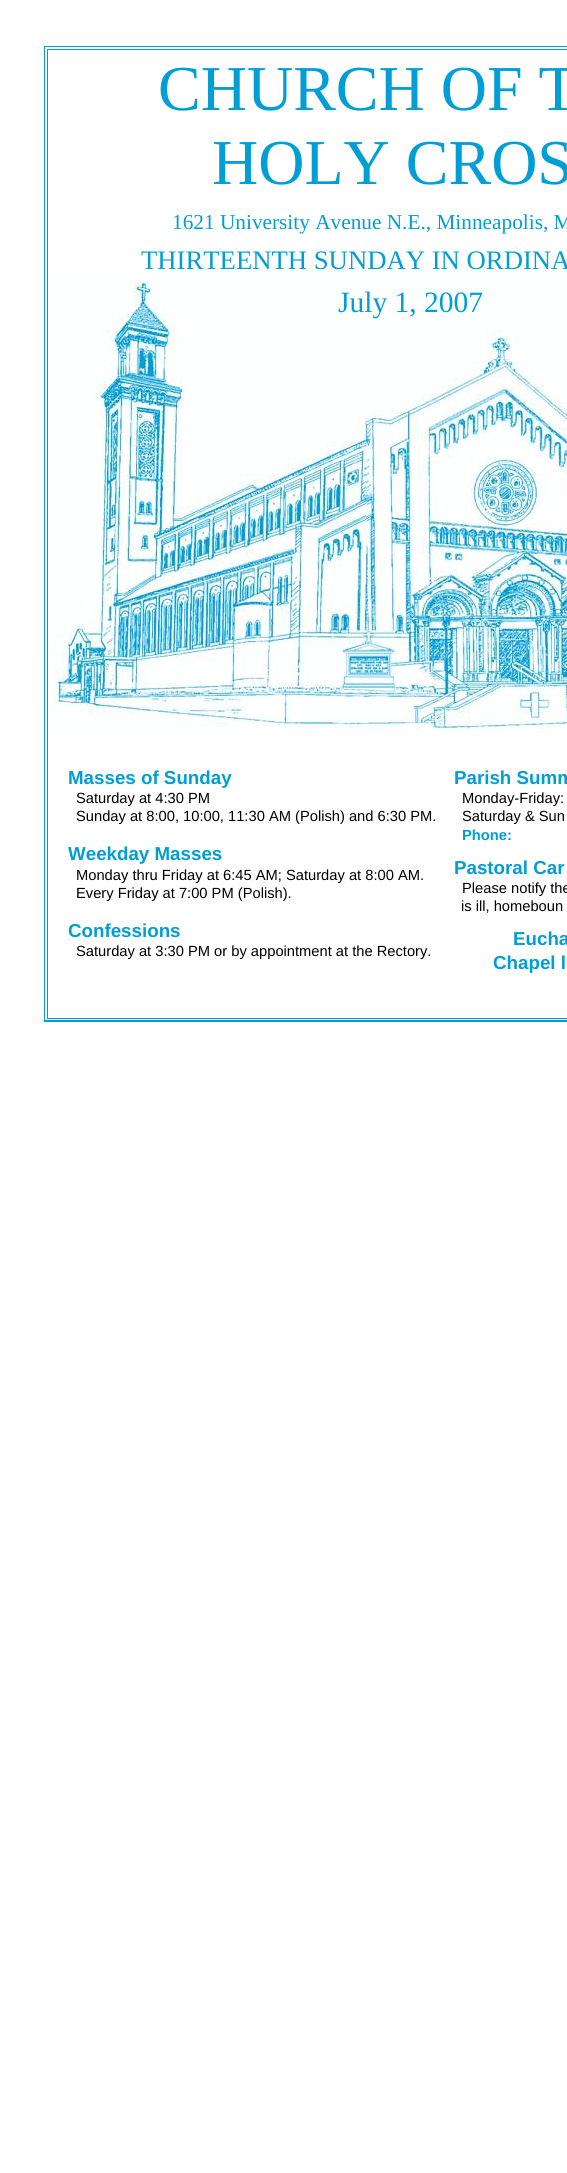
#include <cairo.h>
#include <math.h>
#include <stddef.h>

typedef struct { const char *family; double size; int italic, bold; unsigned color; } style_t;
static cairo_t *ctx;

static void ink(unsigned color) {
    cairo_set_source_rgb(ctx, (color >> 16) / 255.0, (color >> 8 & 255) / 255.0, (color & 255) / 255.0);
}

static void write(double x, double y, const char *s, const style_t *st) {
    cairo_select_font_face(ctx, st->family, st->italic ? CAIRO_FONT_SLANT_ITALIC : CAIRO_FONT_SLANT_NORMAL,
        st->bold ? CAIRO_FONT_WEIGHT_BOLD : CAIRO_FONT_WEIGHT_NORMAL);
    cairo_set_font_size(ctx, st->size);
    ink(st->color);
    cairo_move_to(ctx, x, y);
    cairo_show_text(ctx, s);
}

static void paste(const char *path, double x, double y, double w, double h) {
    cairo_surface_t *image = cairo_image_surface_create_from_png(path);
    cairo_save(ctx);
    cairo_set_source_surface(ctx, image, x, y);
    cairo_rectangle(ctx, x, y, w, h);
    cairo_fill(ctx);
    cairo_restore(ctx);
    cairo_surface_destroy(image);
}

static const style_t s1 = {"Liberation Serif", 64, 0, 0, 0x009ed6};
static const style_t s2 = {"Liberation Serif", 21.3, 0, 0, 0x009ed6};
static const style_t s3 = {"Liberation Serif", 26.7, 0, 0, 0x009ed6};
static const style_t s4 = {"Liberation Serif", 29.5, 0, 0, 0x009ed6};
static const style_t s5 = {"Liberation Sans", 18.75, 0, 1, 0x009ed6};
static const style_t s6 = {"Liberation Sans", 14.7, 0, 0, 0x000000};
static const style_t s7 = {"Liberation Sans", 14.7, 0, 1, 0x009ed6};

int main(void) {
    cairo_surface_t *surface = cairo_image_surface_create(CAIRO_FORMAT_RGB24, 567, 2173);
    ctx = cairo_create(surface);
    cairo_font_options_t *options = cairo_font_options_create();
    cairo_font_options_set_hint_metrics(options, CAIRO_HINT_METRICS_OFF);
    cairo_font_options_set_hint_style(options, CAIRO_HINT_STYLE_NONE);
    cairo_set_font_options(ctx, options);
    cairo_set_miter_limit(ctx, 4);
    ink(0xffffff);
    cairo_paint(ctx);
    write(158, 110, "CHURCH OF T", &s1);
    write(212, 184, "HOLY CROS", &s1);
    write(172, 229, "1621 University Avenue N.E., Minneapolis, M", &s2);
    write(141, 269, "THIRTEENTH SUNDAY IN ORDINA", &s3);
    paste("pic2.png", 54, 282, 513, 449);
    write(338, 312, "July 1, 2007", &s4);
    write(68, 784, "Masses of Sunday", &s5);
    write(76, 803, "Saturday at 4:30 PM", &s6);
    write(76, 821, "Sunday at 8:00, 10:00, 11:30 AM (Polish) and 6:30 PM.", &s6);
    write(68, 860, "Weekday Masses", &s5);
    write(76, 880, "Monday thru Friday at 6:45 AM; Saturday at 8:00 AM.", &s6);
    write(76, 898, "Every Friday at 7:00 PM (Polish).", &s6);
    write(68, 937, "Confessions", &s5);
    write(76, 956, "Saturday at 3:30 PM or by appointment at the Rectory.", &s6);
    write(454, 784, "Parish Summ", &s5);
    write(462, 803, "Monday-Friday:", &s6);
    write(462, 821, "Saturday & Sun", &s6);
    write(462, 840, "Phone:", &s7);
    write(454, 874, "Pastoral Car", &s5);
    write(462, 893, "Please notify the", &s6);
    write(461, 911, "is ill, homeboun", &s6);
    write(513, 945, "Eucha", &s5);
    write(493, 969, "Chapel l", &s5);
    paste("pic1.png", 44, 46, 523, 976);
    cairo_surface_write_to_png(surface, "screenshot.png");
    cairo_font_options_destroy(options);
    cairo_destroy(ctx);
    cairo_surface_destroy(surface);
    return 0;
}
